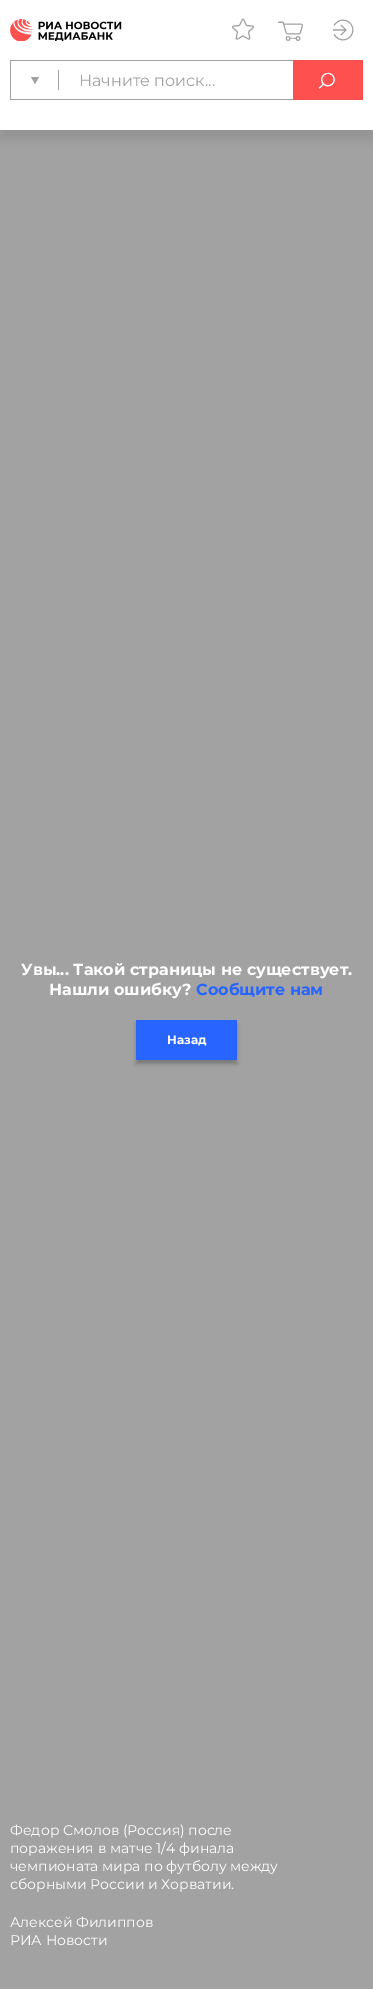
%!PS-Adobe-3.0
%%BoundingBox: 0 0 373 1989
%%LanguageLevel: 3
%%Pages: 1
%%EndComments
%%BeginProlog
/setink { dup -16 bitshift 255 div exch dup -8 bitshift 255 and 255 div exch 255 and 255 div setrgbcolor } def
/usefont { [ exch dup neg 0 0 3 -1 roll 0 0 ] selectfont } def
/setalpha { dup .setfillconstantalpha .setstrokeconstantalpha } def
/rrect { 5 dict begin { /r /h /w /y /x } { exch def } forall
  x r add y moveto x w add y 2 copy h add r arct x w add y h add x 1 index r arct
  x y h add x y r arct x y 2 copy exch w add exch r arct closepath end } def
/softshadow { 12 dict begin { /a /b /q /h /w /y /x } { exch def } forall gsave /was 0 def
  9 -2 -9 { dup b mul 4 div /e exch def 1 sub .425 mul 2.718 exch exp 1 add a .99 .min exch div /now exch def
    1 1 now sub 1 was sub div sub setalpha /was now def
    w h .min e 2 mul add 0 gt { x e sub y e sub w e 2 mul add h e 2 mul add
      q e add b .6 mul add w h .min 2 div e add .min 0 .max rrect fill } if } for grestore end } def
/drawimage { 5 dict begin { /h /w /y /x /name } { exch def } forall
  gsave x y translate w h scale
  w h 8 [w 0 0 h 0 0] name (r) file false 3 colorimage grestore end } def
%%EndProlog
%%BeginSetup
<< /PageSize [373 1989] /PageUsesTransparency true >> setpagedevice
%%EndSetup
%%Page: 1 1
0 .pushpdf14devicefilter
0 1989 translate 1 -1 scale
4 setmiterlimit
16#A3A2A2 setink
0 0 373 1989 rectfill
16#000000 setink
0 9 373 130 0 5 0.1 softshadow
16#FFFFFF setink
0 0 373 130 rectfill
(img1.raw) 10 19 112 22 drawimage
(img2.raw) 232 18 22 22 drawimage
(img3.raw) 278 21 25 20 drawimage
(img4.raw) 333 19 21 22 drawimage
[
    [10 60 283 1 16#A3A2A2]
    [10 99 283 1 16#A3A2A2]
    [10 60 1 40 16#A3A2A2]
] { aload pop setink rectfill } forall
31 77 moveto 39 77 lineto 35 84 lineto closepath fill
58 70 1 20 rectfill
/Montserrat-Regular 16 usefont
79 86 moveto (Начните поиск...) show
16#FF5050 setink
293 60 70 40 rectfill
(img5.raw) 318 72 17 17 drawimage
/Montserrat-Bold 16 usefont
16#FFFFFF setink
21 975 moveto (Увы... Такой страницы не существует.) show
49 995 moveto (Нашли ошибку?) show
16#2864FF setink
196 995 moveto (Сообщите нам) show
16#000000 setink
136 1024 101 40 0 2 0.25 softshadow
16#2864FF setink
136 1020 101 40 rectfill
/Montserrat-Bold 12 usefont
16#FFFFFF setink
167 1044 moveto (Назад) show
/Montserrat-Regular 14 usefont
[
    [(Федор Смолов \(Россия\) после) 10 1835]
    [(поражения в матче 1/4 финала) 10 1853]
    [(чемпионата мира по футболу между) 10 1871]
    [(сборными России и Хорватии.) 10 1889]
    [(Алексей Филиппов) 10 1927]
    [(РИА Новости) 10 1945]
] { aload pop moveto show } forall
.poppdf14devicefilter showpage
%%EOF
